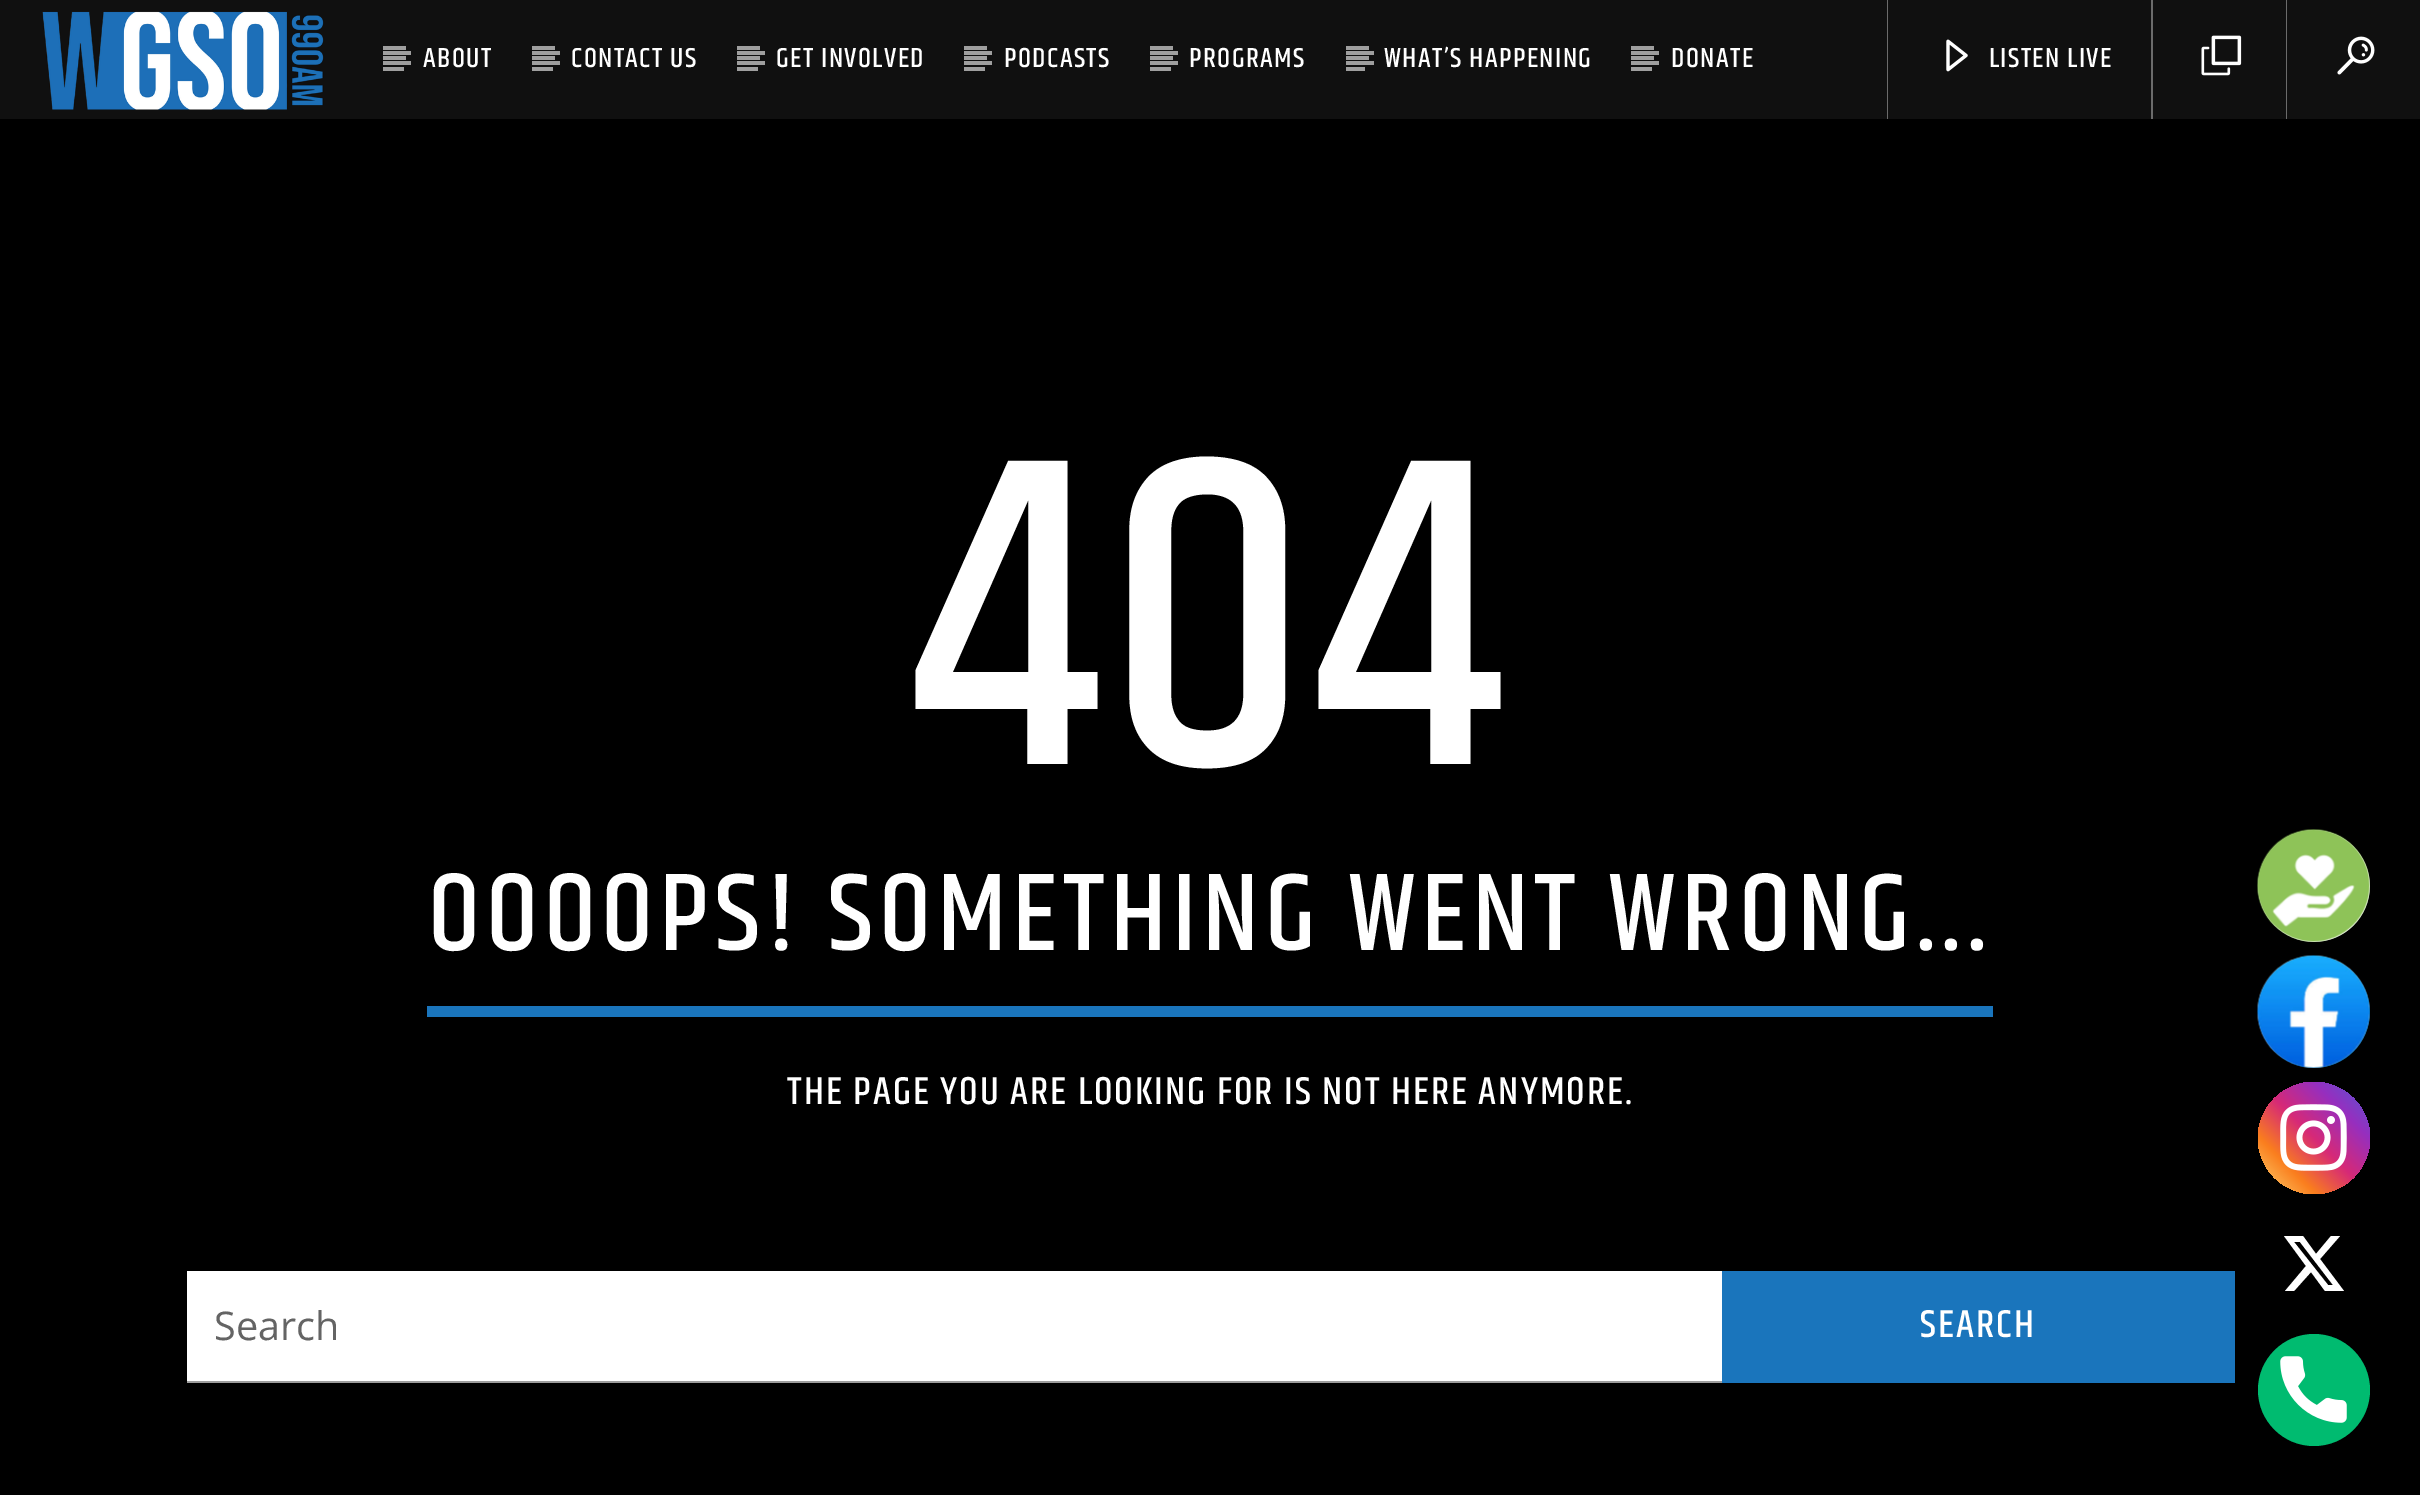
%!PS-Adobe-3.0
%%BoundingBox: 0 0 2420 1495
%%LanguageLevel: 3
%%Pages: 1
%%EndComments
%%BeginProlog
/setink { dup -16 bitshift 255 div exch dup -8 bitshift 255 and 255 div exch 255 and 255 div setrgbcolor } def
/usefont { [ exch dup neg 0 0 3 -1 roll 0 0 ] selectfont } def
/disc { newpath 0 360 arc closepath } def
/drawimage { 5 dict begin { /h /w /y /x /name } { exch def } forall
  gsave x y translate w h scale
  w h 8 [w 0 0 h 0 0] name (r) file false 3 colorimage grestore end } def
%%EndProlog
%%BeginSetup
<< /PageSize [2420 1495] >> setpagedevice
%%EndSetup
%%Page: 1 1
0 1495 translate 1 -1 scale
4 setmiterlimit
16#000000 setink
0 0 2420 1495 rectfill
16#101010 setink
0 0 2286 119 rectfill
(img1.raw) 42 11 282 99 drawimage
16#9F9F9F setink
383 46 23 4 rectfill
383 56 23 4 rectfill
/Khand-Medium 28 usefont
16#FFFFFF setink
423 67 moveto 1.4 0 (ABOUT) ashow
[
    [383 51 28 4 16#9F9F9F]
    [383 61 28 4 16#9F9F9F]
    [383 67 21 4 16#9F9F9F]
    [532 46 23 4 16#9F9F9F]
    [532 56 23 4 16#9F9F9F]
] { aload pop setink rectfill } forall
16#FFFFFF setink
571 67 moveto 1.4 0 (CONTACT US) ashow
[
    [532 51 28 4 16#9F9F9F]
    [532 61 28 4 16#9F9F9F]
    [532 67 21 4 16#9F9F9F]
    [737 46 23 4 16#9F9F9F]
    [737 56 23 4 16#9F9F9F]
] { aload pop setink rectfill } forall
16#FFFFFF setink
776 67 moveto 1.4 0 (GET INVOLVED) ashow
[
    [737 51 28 4 16#9F9F9F]
    [737 61 28 4 16#9F9F9F]
    [737 67 21 4 16#9F9F9F]
    [964 46 23 4 16#9F9F9F]
    [964 56 23 4 16#9F9F9F]
] { aload pop setink rectfill } forall
16#FFFFFF setink
1004 67 moveto 1.4 0 (PODCASTS) ashow
[
    [964 51 28 4 16#9F9F9F]
    [964 61 28 4 16#9F9F9F]
    [964 67 21 4 16#9F9F9F]
    [1150 46 23 4 16#9F9F9F]
    [1150 56 23 4 16#9F9F9F]
] { aload pop setink rectfill } forall
16#FFFFFF setink
1189 67 moveto 1.4 0 (PROGRAMS) ashow
[
    [1150 51 28 4 16#9F9F9F]
    [1150 61 28 4 16#9F9F9F]
    [1150 67 21 4 16#9F9F9F]
    [1346 46 23 4 16#9F9F9F]
    [1346 56 23 4 16#9F9F9F]
] { aload pop setink rectfill } forall
16#FFFFFF setink
1384 67 moveto 1.4 0 (WHAT’S HAPPENING) ashow
[
    [1346 51 28 4 16#9F9F9F]
    [1346 61 28 4 16#9F9F9F]
    [1346 67 19 4 16#9F9F9F]
    [1631 46 23 4 16#9F9F9F]
    [1631 56 23 4 16#9F9F9F]
] { aload pop setink rectfill } forall
16#FFFFFF setink
1671 67 moveto 1.4 0 (DONATE) ashow
[
    [1631 51 28 4 16#9F9F9F]
    [1631 61 28 4 16#9F9F9F]
    [1631 67 21 4 16#9F9F9F]
    [1887 0 1 119 16#6B6B6B]
] { aload pop setink rectfill } forall
(img2.raw) 1946 39 22 33 drawimage
16#FFFFFF setink
1989 67 moveto 1.4 0 (LISTEN LIVE) ashow
16#6B6B6B setink
2151 0 2 119 rectfill
(img3.raw) 2201 35 41 41 drawimage
2286 0 1 119 rectfill
16#101010 setink
2287 0 133 119 rectfill
(img4.raw) 2337 36 38 39 drawimage
16#1A75BC setink
427 1006 1566 11 rectfill
/Khand-Medium 448 usefont
16#FFFFFF setink
911 764 moveto 5.6 0 (404) ashow
/Khand-Medium 112 usefont
428 950 moveto 5.6 0 (OOOOPS! SOMETHING WENT WRONG...) ashow
/Khand-Medium 39.6 usefont
787 1104 moveto 2 0 (THE PAGE YOU ARE LOOKING FOR IS NOT HERE ANYMORE.) ashow
187 1271 1535 110 rectfill
16#9E9E9E setink
187 1381 1535 2 rectfill
/OpenSans-Regular 39.6 usefont
16#646464 setink
214 1340 moveto (Search) show
16#1A75BC setink
1722 1271 513 112 rectfill
/Khand-Medium 39.6 usefont
16#FFFFFF setink
1920 1337 moveto 2 0 (SEARCH) ashow
2314 886 56 disc fill
(img5.raw) 2257 829 113 113 drawimage
16#0068AA setink
2314 1012 56 disc fill
(img6.raw) 2257 955 113 113 drawimage
gsave 2314 1138 56 disc clip newpath
<< /ShadingType 2 /ColorSpace /DeviceRGB /Coords [2258 1194 2370 1082] /Extend [true true] /Function << /FunctionType 3 /Domain [0 1] /Functions [<< /FunctionType 2 /Domain [0 1] /C0 [0.996 0.851 0.459] /C1 [0.98 0.494 0.118] /N 1 >> << /FunctionType 2 /Domain [0 1] /C0 [0.98 0.494 0.118] /C1 [0.839 0.161 0.467] /N 1 >> << /FunctionType 2 /Domain [0 1] /C0 [0.839 0.161 0.467] /C1 [0.588 0.184 0.749] /N 1 >> << /FunctionType 2 /Domain [0 1] /C0 [0.588 0.184 0.749] /C1 [0.31 0.353 0.835] /N 1 >>] /Bounds [0.26 0.5 0.75] /Encode [0 1 0 1 0 1 0 1] >> >> shfill grestore
(img7.raw) 2280 1104 67 67 drawimage
16#FFFFFF setink
2331 1236 moveto 2340 1236 lineto 2320 1259 lineto 2344 1291 lineto 2325 1291 lineto 2311 1272 lineto 2294 1291 lineto 2285 1291 lineto 2306 1266 lineto 2284 1236 lineto 2303 1236 lineto 2316 1254 lineto closepath 2328 1285 moveto 2333 1285 lineto 2300 1242 lineto 2294 1242 lineto closepath fill
16#00BB70 setink
2314 1390 56 disc fill
(img8.raw) 2280 1356 67 67 drawimage
showpage
%%EOF
